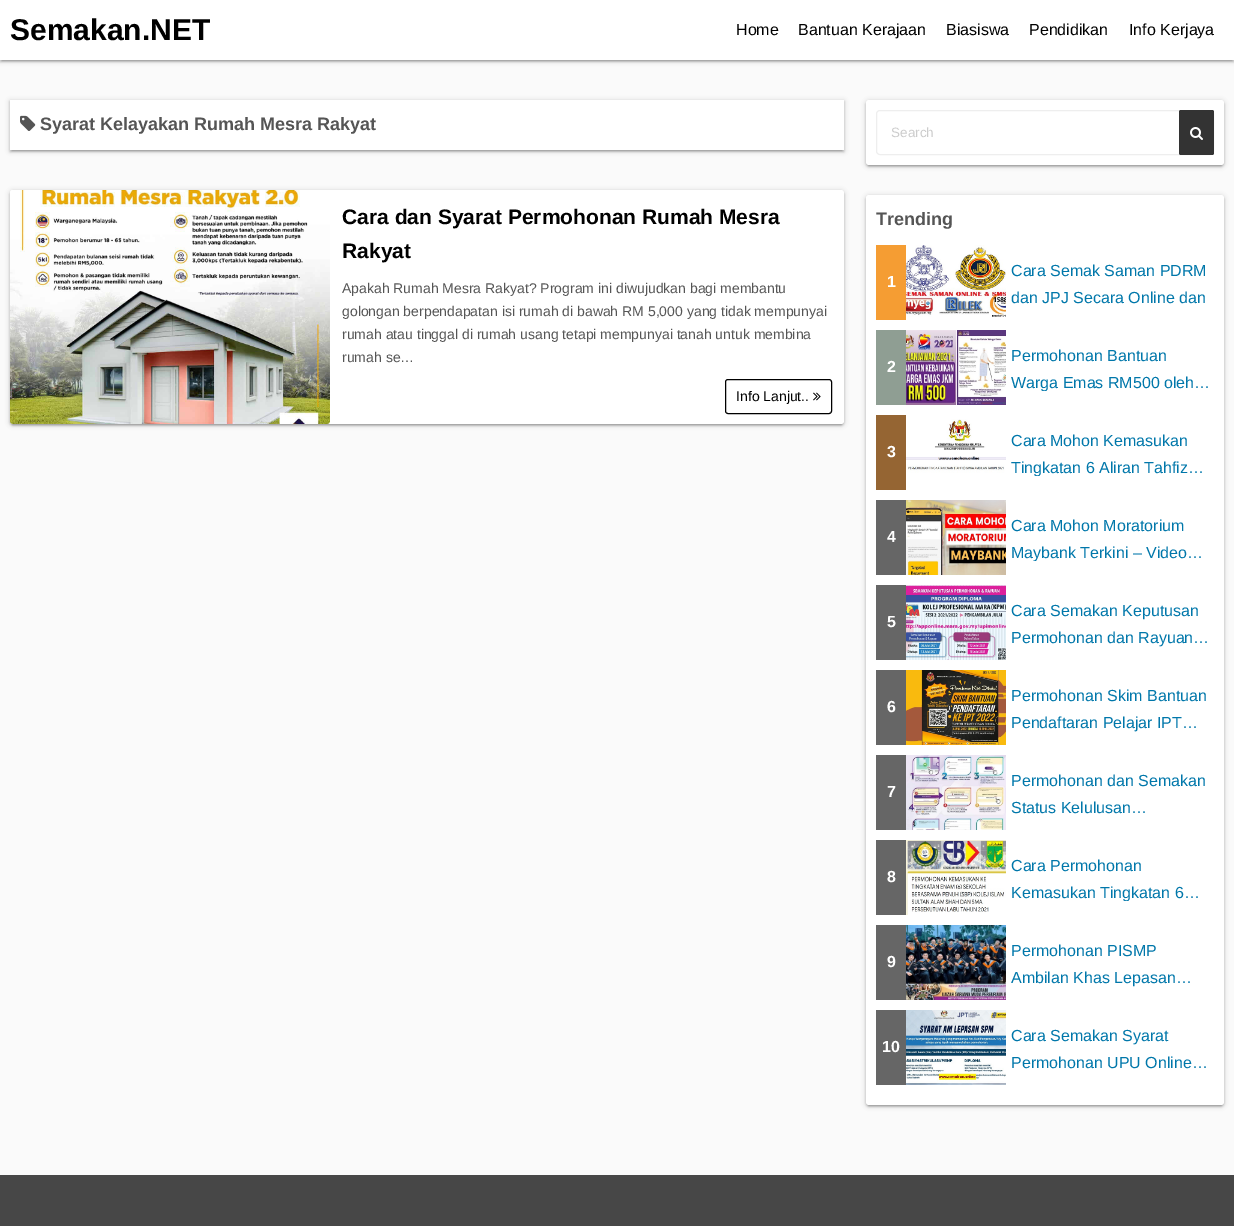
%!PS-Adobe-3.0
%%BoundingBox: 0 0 1234 1226
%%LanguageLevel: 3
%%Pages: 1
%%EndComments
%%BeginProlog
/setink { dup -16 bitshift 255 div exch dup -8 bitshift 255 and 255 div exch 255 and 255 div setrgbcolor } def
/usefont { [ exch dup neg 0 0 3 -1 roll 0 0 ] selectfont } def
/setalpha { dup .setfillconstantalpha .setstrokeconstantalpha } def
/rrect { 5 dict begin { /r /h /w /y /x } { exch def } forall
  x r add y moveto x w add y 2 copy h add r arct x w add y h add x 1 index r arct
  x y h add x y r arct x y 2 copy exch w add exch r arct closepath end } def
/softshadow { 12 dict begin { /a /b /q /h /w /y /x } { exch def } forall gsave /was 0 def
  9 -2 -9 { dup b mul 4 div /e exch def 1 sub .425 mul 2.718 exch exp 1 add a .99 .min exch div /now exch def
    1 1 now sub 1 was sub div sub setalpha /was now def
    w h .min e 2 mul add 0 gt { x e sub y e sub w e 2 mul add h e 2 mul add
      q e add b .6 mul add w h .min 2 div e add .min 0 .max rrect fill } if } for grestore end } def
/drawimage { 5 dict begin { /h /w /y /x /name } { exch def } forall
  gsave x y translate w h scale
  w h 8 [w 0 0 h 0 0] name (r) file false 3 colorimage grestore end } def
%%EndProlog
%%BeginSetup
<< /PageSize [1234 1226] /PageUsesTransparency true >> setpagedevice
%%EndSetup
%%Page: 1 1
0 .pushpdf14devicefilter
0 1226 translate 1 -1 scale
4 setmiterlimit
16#FAFAFA setink
0 0 1234 1226 rectfill
16#000000 setink
0 1 1234 60 0 2.5 0.2 softshadow
2 5 1230 56 0 0.5 0.12 softshadow
0 2 1234 60 0 1 0.14 softshadow
16#FFFFFF setink
0 0 1234 60 rectfill
/LiberationSans-Bold 30 usefont
16#000000 setink
10 40 moveto (Semakan.NET) show
/LiberationSans-Regular 16 usefont
[
    [(Home) 736 35]
    [(Bantuan Kerajaan) 798 35]
    [(Biasiswa) 946 35]
    [(Pendidikan) 1029 35]
    [(Info Kerjaya) 1129 35]
] { aload pop moveto show } forall
10 101 834 50 0 2.5 0.2 softshadow
12 105 830 46 0 0.5 0.12 softshadow
10 102 834 50 0 1 0.14 softshadow
16#FFFFFF setink
10 100 834 50 rectfill
(img1.raw) 20 115 16 16 drawimage
/LiberationSans-Bold 18 usefont
16#555555 setink
40 130 moveto (Syarat Kelayakan Rumah Mesra Rakyat) show
16#000000 setink
10 191 834 234 3 2.5 0.2 softshadow
12 195 830 230 1 0.5 0.12 softshadow
10 192 834 234 3 1 0.14 softshadow
16#FFFFFF setink
10 190 834 234 3 rrect fill
(img2.raw) 10 190 320 234 drawimage
/LiberationSans-Bold 21 usefont
16#000000 setink
342 224 moveto (Cara dan Syarat Permohonan Rumah Mesra) show
342 258 moveto (Rakyat) show
/LiberationSans-Regular 14 usefont
16#555555 setink
[
    [(Apakah Rumah Mesra Rakyat? Program ini diwujudkan bagi membantu) 342 293]
    [(golongan berpendapatan isi rumah di bawah RM 5,000 yang tidak mempunyai) 342 316]
    [(rumah atau tinggal di rumah usang tetapi mempunyai tanah untuk membina) 342 339]
    [(rumah se…) 342 362]
] { aload pop moveto show } forall
16#000000 setink
725.5 379.5 106 34 2.5 rrect stroke
736 401 moveto (Info Lanjut..) show
(img3.raw) 813 392 8 9 drawimage
866 101 358 65 3 2.5 0.2 softshadow
868 105 354 61 1 0.5 0.12 softshadow
866 102 358 65 3 1 0.14 softshadow
16#FFFFFF setink
866 100 358 65 3 rrect fill
16#EEEEEE setink
876.5 110.5 337 44 3.5 rrect stroke
/LiberationSans-Regular 13.5 usefont
16#CCCCCC setink
891 137 moveto (Search) show
16#333333 setink
1179 110 35 45 2 rrect fill
(img4.raw) 1190 127 13 13 drawimage
16#000000 setink
866 196 358 910 3 2.5 0.2 softshadow
868 200 354 906 1 0.5 0.12 softshadow
866 197 358 910 3 1 0.14 softshadow
16#FFFFFF setink
866 195 358 910 3 rrect fill
/LiberationSans-Bold 18 usefont
16#555555 setink
876 225 moveto (Trending) show
16#F59D33 setink
876 245 30 75 rectfill
/LiberationSans-Bold 16 usefont
16#FFFFFF setink
887 287 moveto (1) show
(img5.raw) 906 245 100 72 drawimage
/LiberationSans-Regular 16 usefont
16#0077AA setink
1011 276 moveto (Cara Semak Saman PDRM) show
1011 303 moveto (dan JPJ Secara Online dan) show
16#8F9E93 setink
876 330 30 75 rectfill
/LiberationSans-Bold 16 usefont
16#FFFFFF setink
887 372 moveto (2) show
(img6.raw) 906 330 100 75 drawimage
/LiberationSans-Regular 16 usefont
16#0077AA setink
1011 361 moveto (Permohonan Bantuan) show
gsave
1011 343 203 48 rectclip
1011 388 moveto (Warga Emas RM500 oleh…) show
grestore
16#956533 setink
876 415 30 75 rectfill
/LiberationSans-Bold 16 usefont
16#FFFFFF setink
887 457 moveto (3) show
(img7.raw) 906 419 100 54 drawimage
/LiberationSans-Regular 16 usefont
16#0077AA setink
1011 446 moveto (Cara Mohon Kemasukan) show
gsave
1011 428 203 48 rectclip
1011 473 moveto (Tingkatan 6 Aliran Tahfiz…) show
grestore
16#666666 setink
876 500 30 75 rectfill
/LiberationSans-Bold 16 usefont
16#FFFFFF setink
887 542 moveto (4) show
(img8.raw) 906 500 100 75 drawimage
/LiberationSans-Regular 16 usefont
16#0077AA setink
1011 531 moveto (Cara Mohon Moratorium) show
gsave
1011 513 203 48 rectclip
1011 558 moveto (Maybank Terkini – Video…) show
grestore
16#666666 setink
876 585 30 75 rectfill
/LiberationSans-Bold 16 usefont
16#FFFFFF setink
887 627 moveto (5) show
(img9.raw) 906 585 100 75 drawimage
/LiberationSans-Regular 16 usefont
16#0077AA setink
1011 616 moveto (Cara Semakan Keputusan) show
1011 643 moveto (Permohonan dan Rayuan…) show
16#666666 setink
876 670 30 75 rectfill
/LiberationSans-Bold 16 usefont
16#FFFFFF setink
887 712 moveto (6) show
(img10.raw) 906 670 100 75 drawimage
/LiberationSans-Regular 16 usefont
16#0077AA setink
1011 701 moveto (Permohonan Skim Bantuan) show
1011 728 moveto (Pendaftaran Pelajar IPT…) show
16#666666 setink
876 755 30 75 rectfill
/LiberationSans-Bold 16 usefont
16#FFFFFF setink
887 797 moveto (7) show
(img11.raw) 906 755 100 75 drawimage
/LiberationSans-Regular 16 usefont
16#0077AA setink
1011 786 moveto (Permohonan dan Semakan) show
1011 813 moveto (Status Kelulusan…) show
16#666666 setink
876 840 30 75 rectfill
/LiberationSans-Bold 16 usefont
16#FFFFFF setink
887 882 moveto (8) show
(img12.raw) 906 840 100 75 drawimage
/LiberationSans-Regular 16 usefont
16#0077AA setink
1011 871 moveto (Cara Permohonan) show
gsave
1011 853 203 48 rectclip
1011 898 moveto (Kemasukan Tingkatan 6…) show
grestore
16#666666 setink
876 925 30 75 rectfill
/LiberationSans-Bold 16 usefont
16#FFFFFF setink
887 967 moveto (9) show
(img13.raw) 906 925 100 75 drawimage
/LiberationSans-Regular 16 usefont
16#0077AA setink
1011 956 moveto (Permohonan PISMP) show
1011 983 moveto (Ambilan Khas Lepasan…) show
16#666666 setink
876 1010 30 75 rectfill
/LiberationSans-Bold 16 usefont
16#FFFFFF setink
882 1052 moveto (10) show
(img14.raw) 906 1010 100 75 drawimage
/LiberationSans-Regular 16 usefont
16#0077AA setink
1011 1041 moveto (Cara Semakan Syarat) show
1011 1068 moveto (Permohonan UPU Online…) show
16#474747 setink
0 1175 1234 51 rectfill
.poppdf14devicefilter showpage
%%EOF
